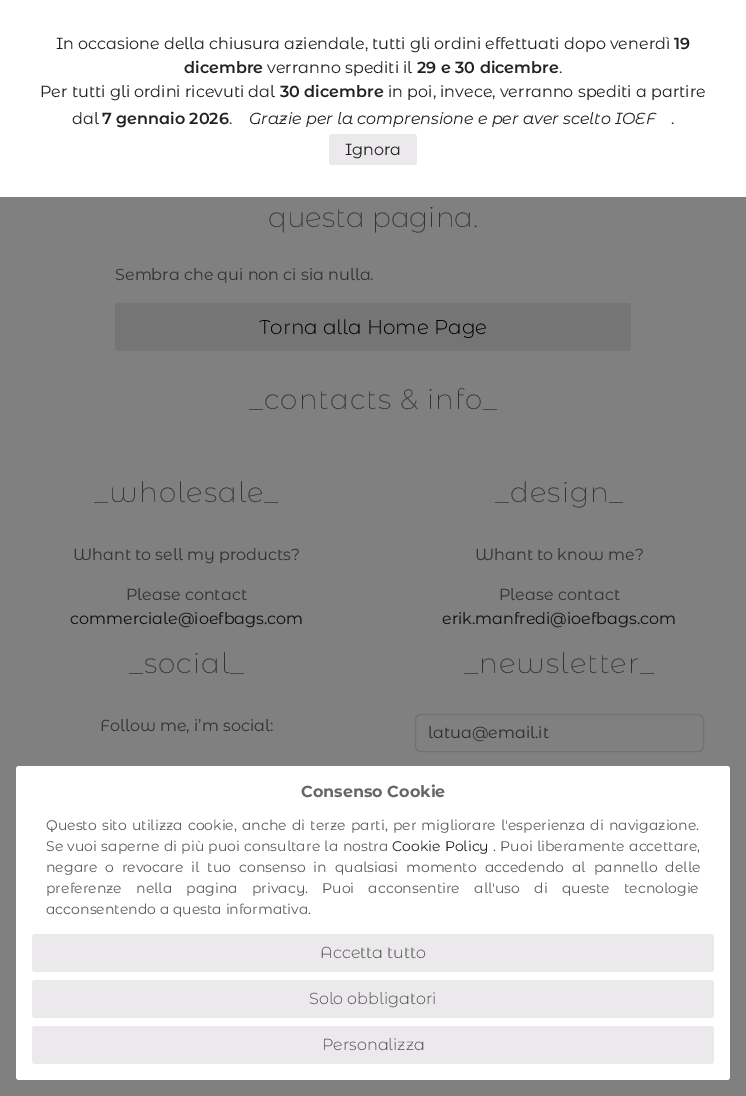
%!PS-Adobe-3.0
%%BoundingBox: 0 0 746 1096
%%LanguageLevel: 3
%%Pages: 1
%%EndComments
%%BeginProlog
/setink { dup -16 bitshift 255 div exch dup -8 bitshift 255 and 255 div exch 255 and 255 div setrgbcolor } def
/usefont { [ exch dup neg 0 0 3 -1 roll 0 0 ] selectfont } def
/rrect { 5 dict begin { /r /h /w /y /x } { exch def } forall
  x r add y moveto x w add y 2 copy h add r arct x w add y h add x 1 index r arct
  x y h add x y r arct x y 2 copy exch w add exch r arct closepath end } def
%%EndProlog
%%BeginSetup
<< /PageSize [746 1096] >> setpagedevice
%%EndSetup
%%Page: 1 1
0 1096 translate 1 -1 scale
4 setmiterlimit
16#808080 setink
0 0 746 1096 rectfill
16#FFFFFF setink
0 0 746 197 rectfill
/MontserratAlternates-Regular 16 usefont
16#222222 setink
56 49 moveto (In occasione della chiusura aziendale, tutti gli ordini effettuati dopo venerdì) show
/MontserratAlternates-SemiBold 16 usefont
674 49 moveto (19) show
184 73 moveto (dicembre) show
/MontserratAlternates-Regular 16 usefont
267 73 moveto (verranno spediti il) show
/MontserratAlternates-SemiBold 16 usefont
417 73 moveto (29 e 30 dicembre) show
/MontserratAlternates-Regular 16 usefont
559 73 moveto (.) show
40 97 moveto (Per tutti gli ordini ricevuti dal) show
/MontserratAlternates-SemiBold 16 usefont
280 97 moveto (30 dicembre) show
/MontserratAlternates-Regular 16 usefont
388 97 moveto (in poi, invece, verranno spediti a partire) show
72 124 moveto (dal) show
/MontserratAlternates-SemiBold 16 usefont
102 124 moveto (7 gennaio 2026) show
/MontserratAlternates-Regular 16 usefont
229 124 moveto (.) show
/MontserratAlternates-Italic 16 usefont
249 124 moveto (Grazie per la comprensione e per aver scelto IOEF) show
/MontserratAlternates-Regular 16 usefont
671 124 moveto (.) show
16#EBE9EB setink
329 134 88 31 3 rrect fill
16#222222 setink
345 155 moveto (Ignora) show
/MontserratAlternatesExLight-ExtraLight 28 usefont
16#333333 setink
268 227 moveto (questa pagina.) show
/MontserratAlternates-Regular 16 usefont
115 280 moveto (Sembra che qui non ci sia nulla.) show
16#767576 setink
115 303 516 48 3 rrect fill
/MontserratAlternates-Light 20 usefont
16#000000 setink
259 334 moveto (Torna alla Home Page) show
/MontserratAlternatesExLight-ExtraLight 28 usefont
16#333333 setink
249 409 moveto 1 0 (_contacts & info_) ashow
94 502 moveto 1 0 (_wholesale_) ashow
/MontserratAlternates-Regular 16 usefont
73 560 moveto (Whant to sell my products?) show
126 600 moveto (Please contact) show
16#111111 setink
70 624 moveto (commerciale@ioefbags.com) show
/MontserratAlternatesExLight-ExtraLight 28 usefont
16#333333 setink
495 502 moveto 1 0 (_design_) ashow
/MontserratAlternates-Regular 16 usefont
475 560 moveto (Whant to know me?) show
499 600 moveto (Please contact) show
16#111111 setink
442 624 moveto (erik.manfredi@ioefbags.com) show
/MontserratAlternatesExLight-ExtraLight 28 usefont
16#333333 setink
129 673 moveto 1 0 (_social_) ashow
/MontserratAlternates-Regular 16 usefont
100 731 moveto (Follow me, i’m social:) show
/MontserratAlternatesExLight-ExtraLight 28 usefont
464 673 moveto 1 0 (_newsletter_) ashow
16#6F7173 setink
415.5 714.5 288 37 5.5 rrect stroke
/MontserratAlternates-Regular 16 usefont
16#2D2E30 setink
428 738 moveto (latua@email.it) show
16#FFFFFF setink
16 766 714 314 3 rrect fill
/MontserratAlternates-Bold 16 usefont
16#666666 setink
301 797 moveto (Consenso Cookie) show
/MontserratAlternates-Regular 14 usefont
16#595C5F setink
46 830 moveto 1.5 0 32 (Questo sito utilizza cookie, anche di terze parti, per migliorare l'esperienza di navigazione.) widthshow
46 851 moveto 0.75 0 32 (Se vuoi saperne di più puoi consultare la nostra) widthshow
16#222222 setink
392 851 moveto 0.75 0 32 (Cookie Policy) widthshow
16#595C5F setink
493 851 moveto 0.75 0 32 (. Puoi liberamente accettare,) widthshow
46 872 moveto 4.25 0 32 (negare o revocare il tuo consenso in qualsiasi momento accedendo al pannello delle) widthshow
46 893 moveto 10.5 0 32 (preferenze nella pagina privacy. Puoi acconsentire all'uso di queste tecnologie) widthshow
46 914 moveto (acconsentendo a questa informativa.) show
16#EBE9EB setink
32 934 682 38 3 rrect fill
/MontserratAlternates-Light 16 usefont
16#515151 setink
320 958 moveto (Accetta tutto) show
16#EBE9EB setink
32 980 682 38 3 rrect fill
16#515151 setink
309 1004 moveto (Solo obbligatori) show
16#EBE9EB setink
32 1026 682 38 3 rrect fill
16#515151 setink
322 1050 moveto (Personalizza) show
showpage
%%EOF
